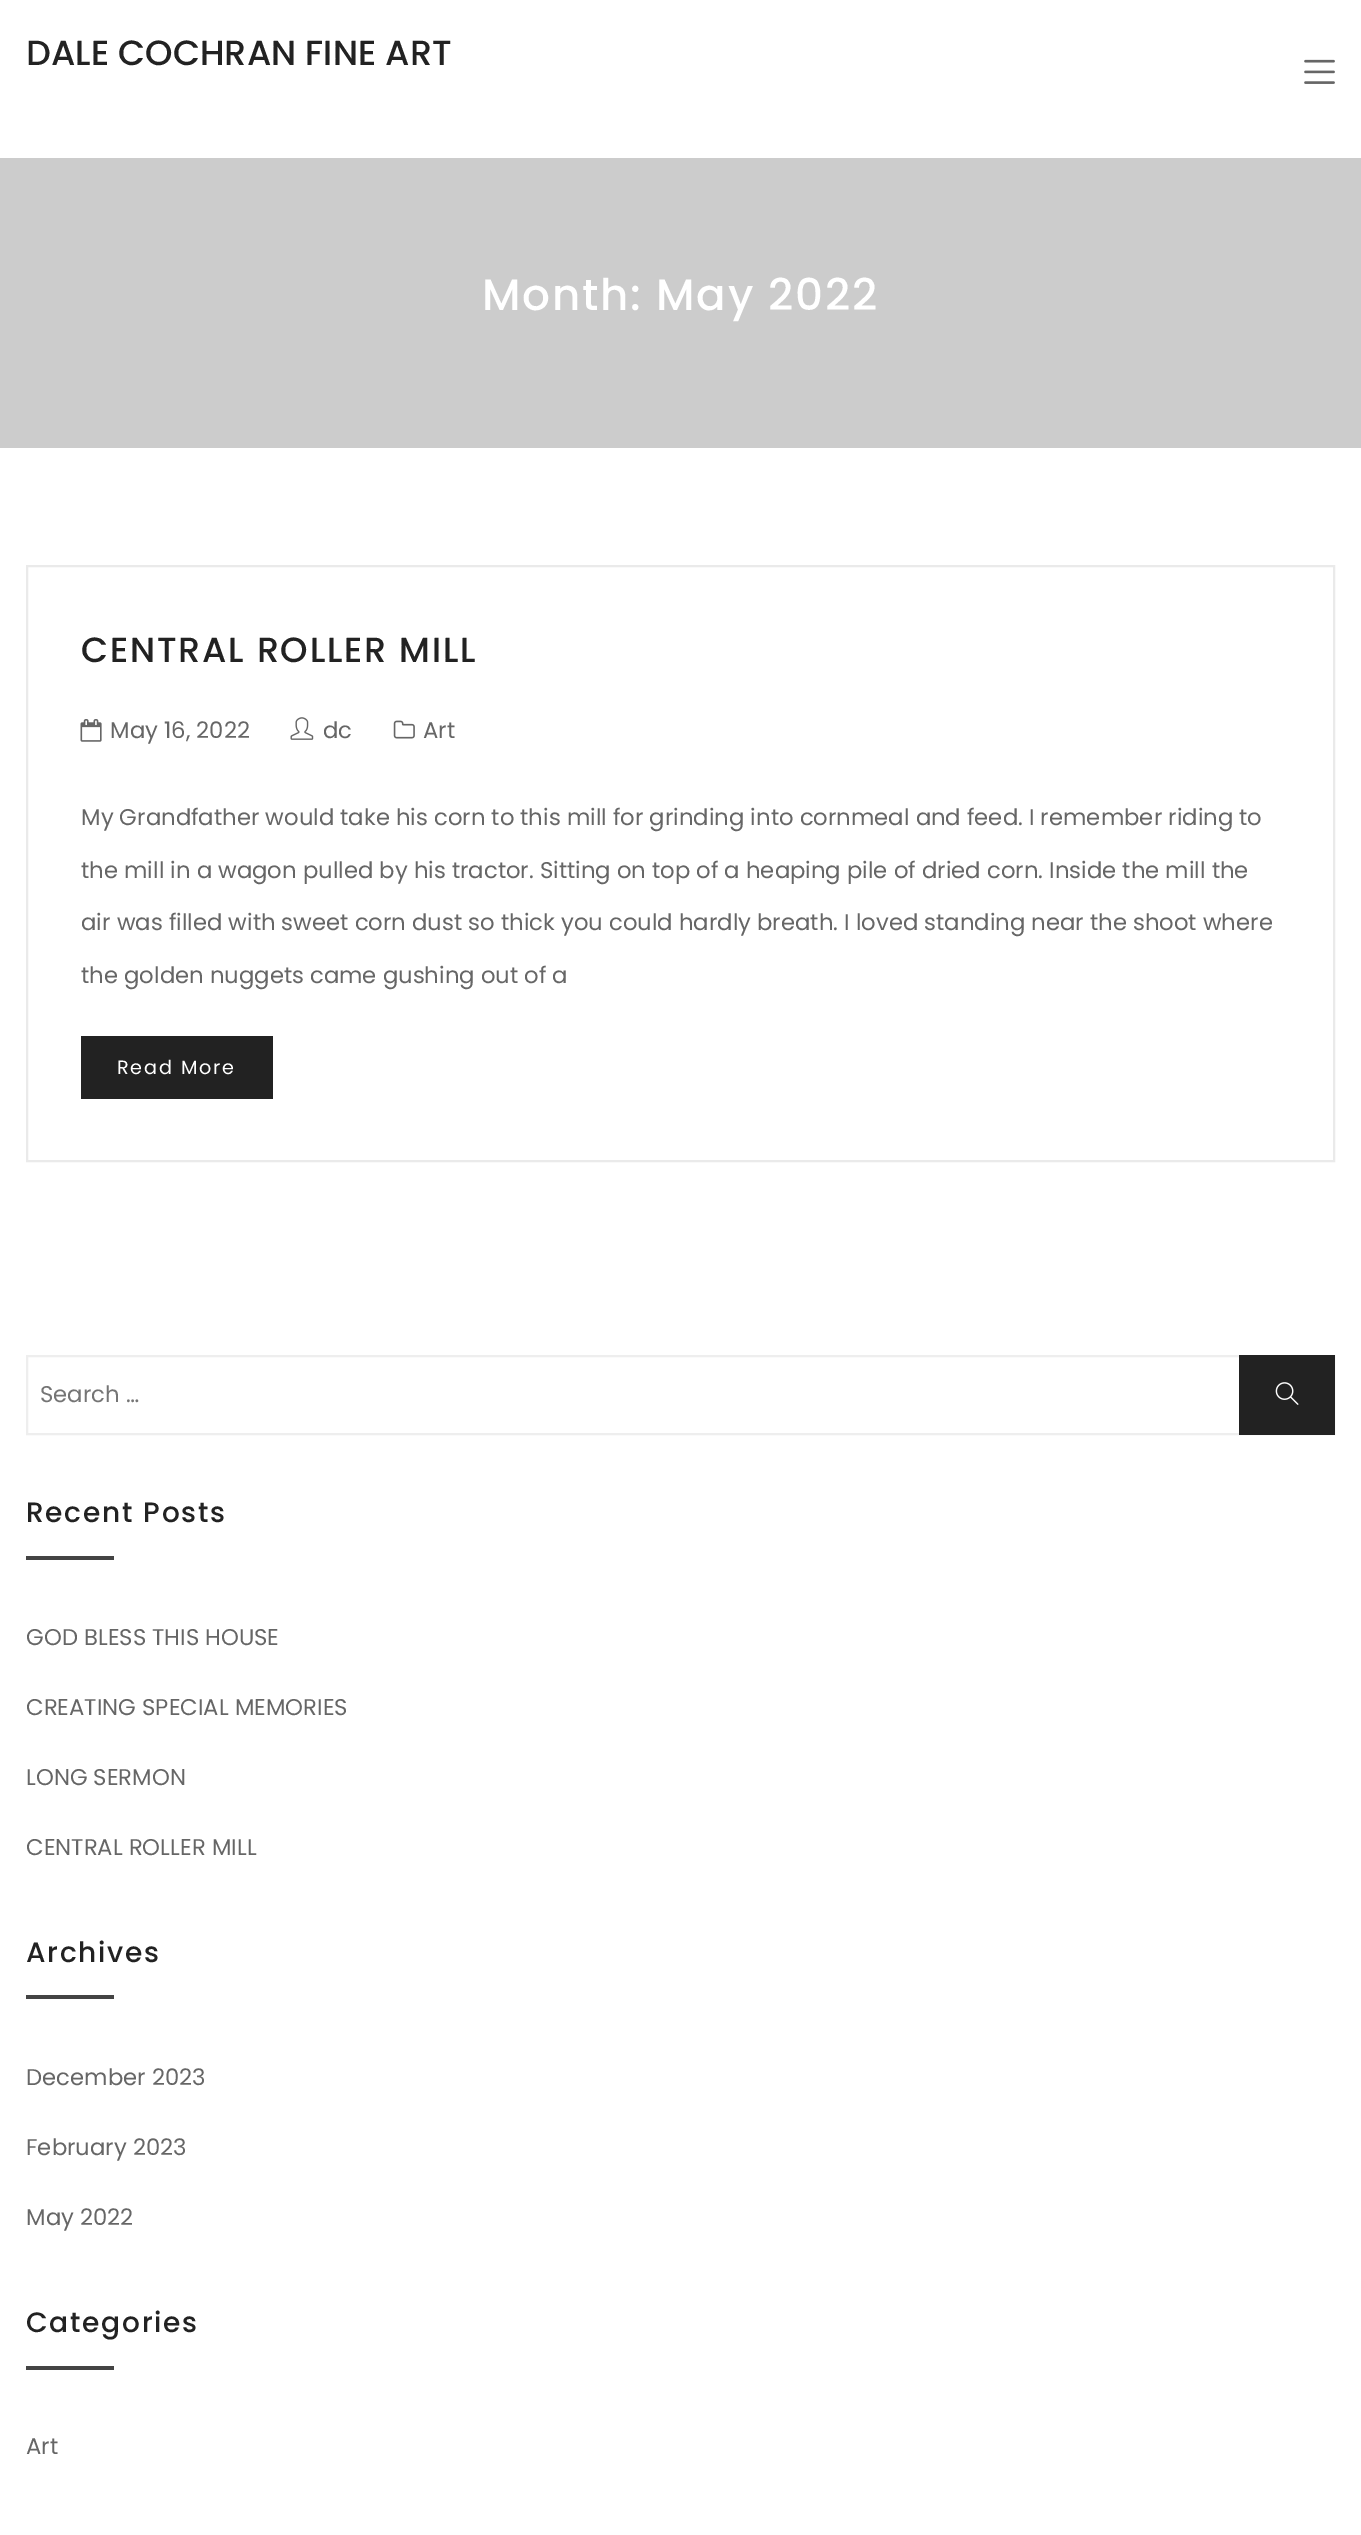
%!PS-Adobe-3.0
%%BoundingBox: 0 0 1361 2535
%%LanguageLevel: 3
%%Pages: 1
%%EndComments
%%BeginProlog
/setink { dup -16 bitshift 255 div exch dup -8 bitshift 255 and 255 div exch 255 and 255 div setrgbcolor } def
/usefont { [ exch dup neg 0 0 3 -1 roll 0 0 ] selectfont } def
/drawimage { 5 dict begin { /h /w /y /x /name } { exch def } forall
  gsave x y translate w h scale
  w h 8 [w 0 0 h 0 0] name (r) file false 3 colorimage grestore end } def
%%EndProlog
%%BeginSetup
<< /PageSize [1361 2535] >> setpagedevice
%%EndSetup
%%Page: 1 1
0 2535 translate 1 -1 scale
4 setmiterlimit
16#FFFFFF setink
0 0 1361 2535 rectfill
/Poppins-Medium 35 usefont
16#222222 setink
26 65 moveto (DALE COCHRAN FINE ART) show
(img1.raw) 1304 59 31 25 drawimage
16#CCCCCC setink
0 158 1361 290 rectfill
/Poppins-Medium 43.75 usefont
16#FFFFFF setink
482 310 moveto 1.75 0 (Month: May 2022) ashow
16#EAEAEA setink
2 setlinewidth
27 566 1307 595 rectstroke
/Poppins-Medium 35 usefont
16#222222 setink
81 662 moveto 1.75 0 (CENTRAL ROLLER MILL) ashow
(img2.raw) 80 719 22 23 drawimage
/Poppins-Regular 22.75 usefont
16#666666 setink
110 738 moveto (May 16, 2022) show
(img3.raw) 290 717 24 23 drawimage
323 738 moveto (dc) show
(img4.raw) 393 720 22 19 drawimage
[
    [(Art) 423 738]
    [(My Grandfather would take his corn to this mill for grinding into cornmeal and feed. I remember riding to) 81 825]
    [(the mill in a wagon pulled by his tractor. Sitting on top of a heaping pile of dried corn. Inside the mill the) 81 878]
    [(air was filled with sweet corn dust so thick you could hardly breath. I loved standing near the shoot where) 81 930]
    [(the golden nuggets came gushing out of a) 81 983]
] { aload pop moveto show } forall
16#222222 setink
81 1036 192 63 rectfill
/Poppins-Regular 19.25 usefont
16#FFFFFF setink
117 1074 moveto 1.75 0 (Read More) ashow
16#EEEEEE setink
27 1356 1307 78 rectstroke
/Poppins-Regular 22.75 usefont
16#757575 setink
40 1402 moveto (Search …) show
16#222222 setink
1239 1355 96 80 rectfill
(img5.raw) 1275 1382 24 23 drawimage
/Poppins-Medium 28 usefont
26 1522 moveto 1.75 0 (Recent Posts) ashow
16#444444 setink
26 1556 88 4 rectfill
/Poppins-Regular 22.75 usefont
16#666666 setink
[
    [(GOD BLESS THIS HOUSE) 26 1645]
    [(CREATING SPECIAL MEMORIES) 26 1715]
    [(LONG SERMON) 26 1785]
    [(CENTRAL ROLLER MILL) 26 1855]
] { aload pop moveto show } forall
/Poppins-Medium 28 usefont
16#222222 setink
26 1962 moveto 1.75 0 (Archives) ashow
16#444444 setink
26 1995 88 4 rectfill
/Poppins-Regular 22.75 usefont
16#666666 setink
[
    [(December 2023) 26 2085]
    [(February 2023) 26 2155]
    [(May 2022) 26 2225]
] { aload pop moveto show } forall
/Poppins-Medium 28 usefont
16#222222 setink
26 2332 moveto 1.75 0 (Categories) ashow
16#444444 setink
26 2366 88 4 rectfill
/Poppins-Regular 22.75 usefont
16#666666 setink
26 2454 moveto (Art) show
showpage
%%EOF
